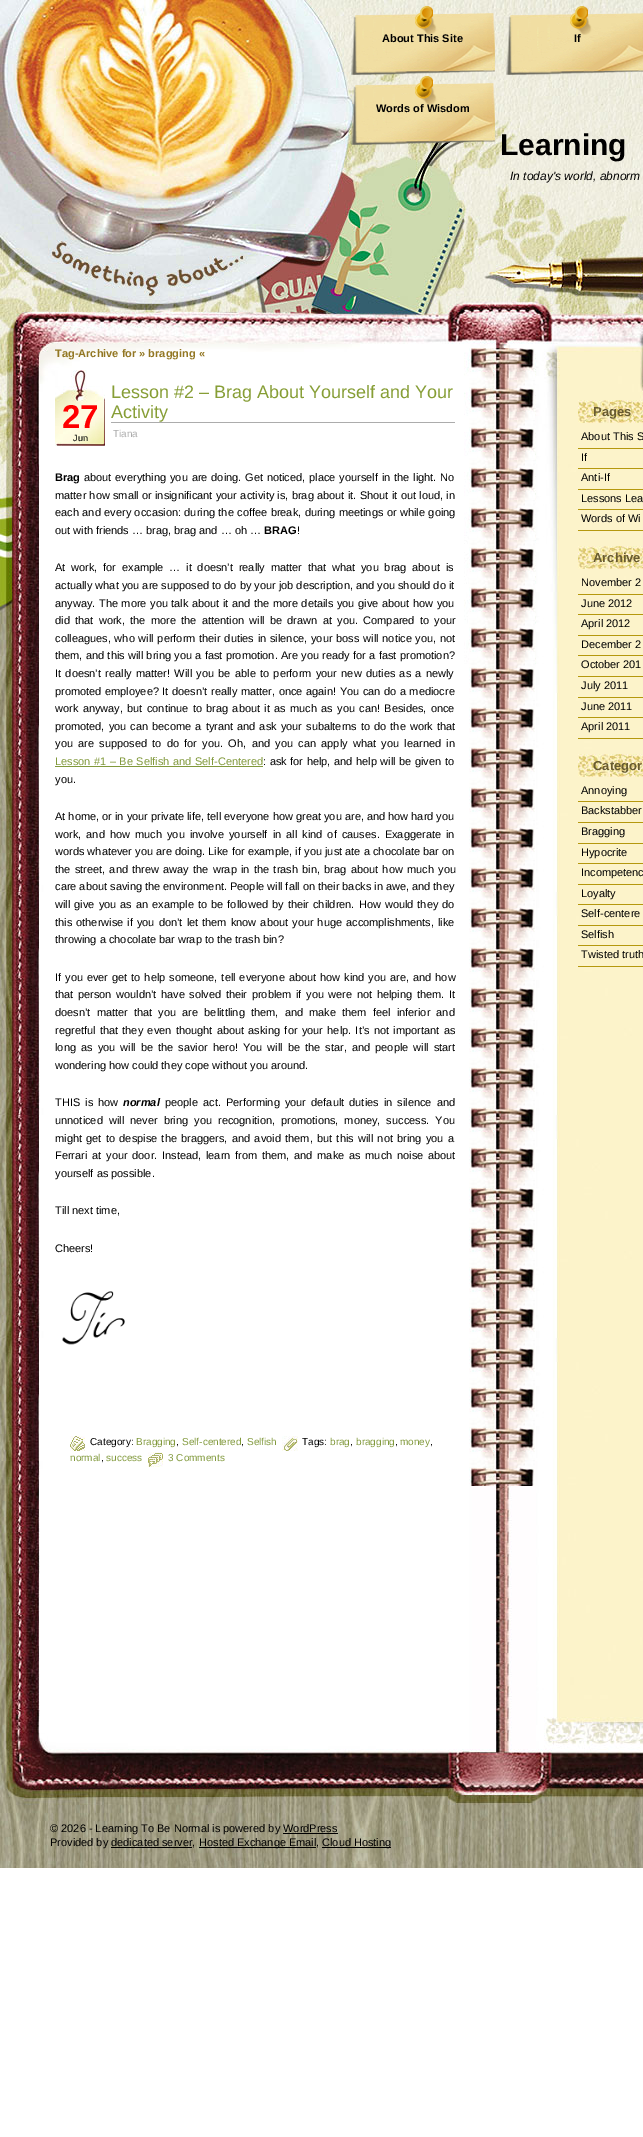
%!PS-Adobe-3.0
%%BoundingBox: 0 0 643 2137
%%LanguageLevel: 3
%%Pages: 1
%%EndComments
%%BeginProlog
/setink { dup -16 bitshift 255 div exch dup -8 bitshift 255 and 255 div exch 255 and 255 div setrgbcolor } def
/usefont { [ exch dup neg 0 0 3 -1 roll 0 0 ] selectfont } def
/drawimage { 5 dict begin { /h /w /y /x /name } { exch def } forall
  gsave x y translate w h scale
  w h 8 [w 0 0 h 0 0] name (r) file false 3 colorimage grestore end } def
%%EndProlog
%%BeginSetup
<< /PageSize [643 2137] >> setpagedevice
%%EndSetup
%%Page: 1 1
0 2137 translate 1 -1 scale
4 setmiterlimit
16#FFFFFF setink
0 0 643 2137 rectfill
(img1.raw) 0 669 643 792 drawimage
(img2.raw) 0 0 643 320 drawimage
(img3.raw) 351 6 144 69 drawimage
/LiberationSans-Bold 11 usefont
16#000000 setink
382 42 moveto (About This Site) show
(img4.raw) 506 6 137 69 drawimage
574 42 moveto (If) show
(img5.raw) 351 76 144 69 drawimage
376 112 moveto (Words of Wisdom) show
/LiberationSans-Bold 30 usefont
500 155 moveto (Learning) show
/LiberationSans-Italic 12 usefont
510 180 moveto (In today's world, abnorm) show
(img6.raw) 0 320 643 349 drawimage
(img14.raw) 0 1461 643 407 drawimage
(img7.raw) 469 348 66 1138 drawimage
/LiberationSans-Bold 11 usefont
16#937723 setink
55 357 moveto (Tag-Archive for » bragging «) show
(img8.raw) 55 370 50 76 drawimage
/LiberationSans-Bold 33 usefont
16#FF0000 setink
62 428 moveto (27) show
/LiberationSans-Regular 9 usefont
16#000000 setink
73 441 moveto (Jun) show
16#ACACAC setink
111 422 344 1 rectfill
/LiberationSans-Regular 18 usefont
16#879E36 setink
111 398 moveto (Lesson #2 – Brag About Yourself and Your) show
111 418 moveto (Activity) show
/LiberationSans-Regular 10 usefont
16#ACACAC setink
113 437 moveto (Tiana) show
/LiberationSans-Bold 11 usefont
16#000000 setink
55 481 moveto (Brag) show
/LiberationSans-Regular 11 usefont
84 481 moveto 0.8 0 32 (about everything you are doing. Get noticed, place yourself in the light. No) widthshow
55 499 moveto 0.25 0 32 (matter how small or insignificant your activity is, brag about it. Shout it out loud, in) widthshow
55 516 moveto 0.4 0 32 (each and every occasion: during the coffee break, during meetings or while going) widthshow
55 534 moveto (out with friends … brag, brag and … oh …) show
/LiberationSans-Bold 11 usefont
264 534 moveto (BRAG) show
/LiberationSans-Regular 11 usefont
297 534 moveto (!) show
55 571 moveto 2.75 0 32 (At work, for example … it doesn’t really matter that what you brag about is) widthshow
55 589 moveto (actually what you are supposed to do by your job description, and you should do it) show
55 607 moveto 0.5 0 32 (anyway. The more you talk about it and the more details you give about how you) widthshow
55 624 moveto 2.25 0 32 (did that work, the more the attention will be drawn at you. Compared to your) widthshow
55 642 moveto 0.75 0 32 (colleagues, who will perform their duties in silence, your boss will notice you, not) widthshow
55 659 moveto 0.25 0 32 (them, and this will bring you a fast promotion. Are you ready for a fast promotion?) widthshow
55 677 moveto 1.25 0 32 (It doesn’t really matter! Will you be able to perform your new duties as a newly) widthshow
55 695 moveto 0.5 0 32 (promoted employee? It doesn’t really matter, once again! You can do a mediocre) widthshow
55 712 moveto 1.25 0 32 (work anyway, but continue to brag about it as much as you can! Besides, once) widthshow
55 730 moveto 1 0 32 (promoted, you can become a tyrant and ask your subalterns to do the work that) widthshow
55 747 moveto 2.25 0 32 (you are supposed to do for you. Oh, and you can apply what you learned in) widthshow
16#81993B setink
55 765 moveto 0.5 0 32 (Lesson #1 – Be Selfish and Self-Centered) widthshow
55 766 208 1 rectfill
16#000000 setink
263 765 moveto 0.5 0 32 (: ask for help, and help will be given to) widthshow
55 783 moveto (you.) show
55 820 moveto (At home, or in your private life, tell everyone how great you are, and how hard you) show
55 838 moveto 2 0 32 (work, and how much you involve yourself in all kind of causes. Exaggerate in) widthshow
55 855 moveto 0.1 0 32 (words whatever you are doing. Like for example, if you just ate a chocolate bar on) widthshow
55 873 moveto 1.25 0 32 (the street, and threw away the wrap in the trash bin, brag about how much you) widthshow
55 890 moveto (care about saving the environment. People will fall on their backs in awe, and they) show
55 908 moveto 1 0 32 (will give you as an example to be followed by their children. How would they do) widthshow
55 926 moveto 1 0 32 (this otherwise if you don’t let them know about your huge accomplishments, like) widthshow
55 943 moveto (throwing a chocolate bar wrap to the trash bin?) show
55 981 moveto 0.9 0 32 (If you ever get to help someone, tell everyone about how kind you are, and how) widthshow
55 998 moveto 1.5 0 32 (that person wouldn’t have solved their problem if you were not helping them. It) widthshow
55 1016 moveto 3.1 0 32 (doesn’t matter that you are belittling them, and make them feel inferior and) widthshow
55 1034 moveto 1.25 0 32 (regretful that they even thought about asking for your help. It’s not important as) widthshow
55 1051 moveto 2 0 32 (long as you will be the savior hero! You will be the star, and people will start) widthshow
55 1069 moveto (wondering how could they cope without you around.) show
55 1106 moveto 2 0 32 (THIS is how) widthshow
/LiberationSans-BoldItalic 11 usefont
123 1106 moveto (normal) show
/LiberationSans-Regular 11 usefont
165 1106 moveto 2 0 32 (people act. Performing your default duties in silence and) widthshow
55 1124 moveto 3 0 32 (unnoticed will never bring you recognition, promotions, money, success. You) widthshow
55 1142 moveto 1.25 0 32 (might get to despise the braggers, and avoid them, but this will not bring you a) widthshow
55 1159 moveto 1.7 0 32 (Ferrari at your door. Instead, learn from them, and make as much noise about) widthshow
[
    [(yourself as possible.) 55 1177]
    [(Till next time,) 55 1214]
    [(Cheers!) 55 1252]
] { aload pop moveto show } forall
(img9.raw) 62 1291 63 54 drawimage
(img10.raw) 70 1436 15 15 drawimage
/LiberationSans-Regular 10 usefont
90 1445 moveto (Category:) show
16#81993B setink
136 1445 moveto (Bragging) show
16#000000 setink
176 1445 moveto (,) show
16#81993B setink
182 1445 moveto (Self-centered) show
16#000000 setink
241 1445 moveto (,) show
16#81993B setink
247 1445 moveto (Selfish) show
(img11.raw) 282 1436 16 15 drawimage
16#000000 setink
302 1445 moveto (Tags:) show
16#81993B setink
330 1445 moveto (brag) show
16#000000 setink
350 1445 moveto (,) show
16#81993B setink
356 1445 moveto (bragging) show
16#000000 setink
395 1445 moveto (,) show
16#81993B setink
400 1445 moveto (money) show
16#000000 setink
430 1445 moveto (,) show
16#81993B setink
70 1461 moveto (normal) show
16#000000 setink
101 1461 moveto (,) show
16#81993B setink
106 1461 moveto (success) show
(img12.raw) 148 1452 15 15 drawimage
168 1461 moveto (3 Comments) show
(img13.raw) 578 400 65 23 drawimage
/LiberationSans-Bold 13 usefont
16#685B31 setink
593 416 moveto (Pages) show
16#B5980E setink
578 448 65 1 rectfill
/LiberationSans-Regular 11 usefont
16#000000 setink
581 440 moveto (About This S) show
16#B5980E setink
578 468 65 1 rectfill
16#000000 setink
581 461 moveto (If) show
16#B5980E setink
578 489 65 1 rectfill
16#000000 setink
581 481 moveto (Anti-If) show
16#B5980E setink
578 509 65 1 rectfill
16#000000 setink
581 502 moveto (Lessons Lea) show
16#B5980E setink
578 530 65 1 rectfill
16#000000 setink
581 522 moveto (Words of Wi) show
(img13.raw) 578 546 65 23 drawimage
/LiberationSans-Bold 13 usefont
16#685B31 setink
593 562 moveto (Archive) show
16#B5980E setink
578 594 65 1 rectfill
/LiberationSans-Regular 11 usefont
16#000000 setink
581 586 moveto (November 2) show
16#B5980E setink
578 614 65 1 rectfill
16#000000 setink
581 607 moveto (June 2012) show
16#B5980E setink
578 635 65 1 rectfill
16#000000 setink
581 627 moveto (April 2012) show
16#B5980E setink
578 655 65 1 rectfill
16#000000 setink
581 648 moveto (December 2) show
16#B5980E setink
578 676 65 1 rectfill
16#000000 setink
581 668 moveto (October 201) show
16#B5980E setink
578 697 65 1 rectfill
16#000000 setink
581 689 moveto (July 2011) show
16#B5980E setink
578 717 65 1 rectfill
16#000000 setink
581 710 moveto (June 2011) show
16#B5980E setink
578 738 65 1 rectfill
16#000000 setink
581 730 moveto (April 2011) show
(img13.raw) 578 754 65 23 drawimage
/LiberationSans-Bold 13 usefont
16#685B31 setink
593 770 moveto (Categor) show
16#B5980E setink
578 801 65 1 rectfill
/LiberationSans-Regular 11 usefont
16#000000 setink
581 794 moveto (Annoying) show
16#B5980E setink
578 822 65 1 rectfill
16#000000 setink
581 814 moveto (Backstabber) show
16#B5980E setink
578 843 65 1 rectfill
16#000000 setink
581 835 moveto (Bragging) show
16#B5980E setink
578 863 65 1 rectfill
16#000000 setink
581 856 moveto (Hypocrite) show
16#B5980E setink
578 884 65 1 rectfill
16#000000 setink
581 876 moveto (Incompetenc) show
16#B5980E setink
578 904 65 1 rectfill
16#000000 setink
581 897 moveto (Loyalty) show
16#B5980E setink
578 925 65 1 rectfill
16#000000 setink
581 917 moveto (Self-centere) show
16#B5980E setink
578 945 65 1 rectfill
16#000000 setink
581 938 moveto (Selfish) show
16#B5980E setink
578 966 65 1 rectfill
16#000000 setink
581 958 moveto (Twisted truth) show
50 1832 moveto (© 2026 - Learning To Be Normal is powered by WordPress) show
283 1833 55 1 rectfill
50 1846 moveto (Provided by dedicated server,) show
199 1847 117 1 rectfill
199 1846 moveto (Hosted Exchange Email,) show
322 1847 69 1 rectfill
322 1846 moveto (Cloud Hosting) show
111 1847 81 1 rectfill
showpage
%%EOF
